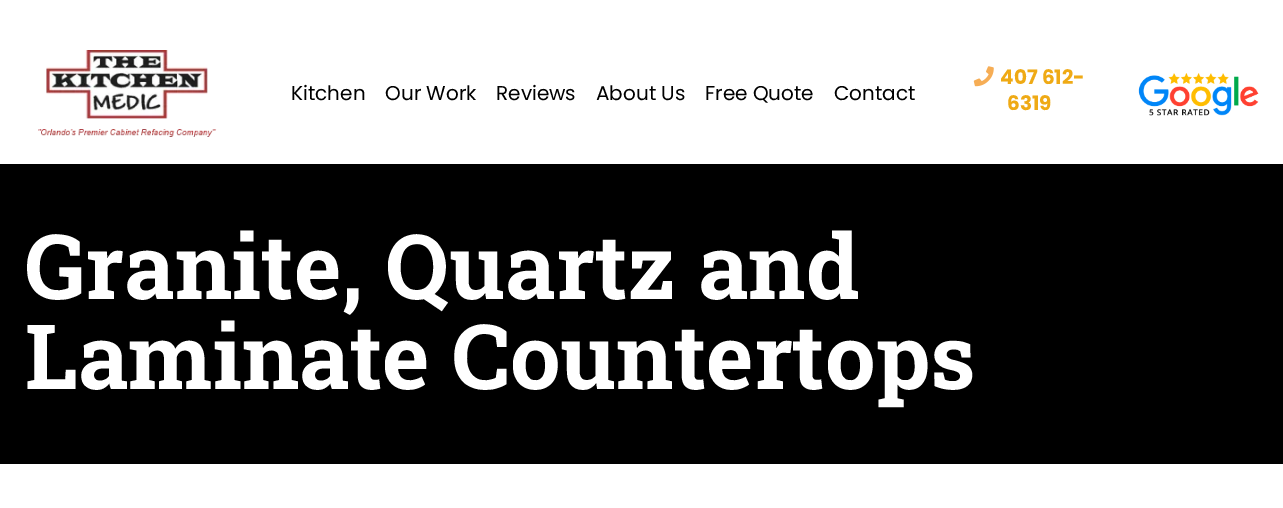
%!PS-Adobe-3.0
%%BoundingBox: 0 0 1283 508
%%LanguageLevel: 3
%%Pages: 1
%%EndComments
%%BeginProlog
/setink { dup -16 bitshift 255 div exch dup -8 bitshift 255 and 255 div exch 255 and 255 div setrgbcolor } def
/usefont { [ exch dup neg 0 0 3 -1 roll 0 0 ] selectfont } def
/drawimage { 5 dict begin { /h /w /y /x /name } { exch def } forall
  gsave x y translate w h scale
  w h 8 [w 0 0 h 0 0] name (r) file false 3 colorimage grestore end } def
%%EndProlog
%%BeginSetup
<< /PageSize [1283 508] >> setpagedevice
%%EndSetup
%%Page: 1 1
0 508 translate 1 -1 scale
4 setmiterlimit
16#FFFFFF setink
0 0 1283 508 rectfill
(img1.raw) 38 50 179 87 drawimage
/Poppins-Regular 20 usefont
16#000000 setink
[
    [(Kitchen) 291 100]
    [(Our Work) 385 100]
    [(Reviews) 496 100]
    [(About Us) 596 100]
    [(Free Quote) 705 100]
    [(Contact) 834 100]
] { aload pop moveto show } forall
(img2.raw) 973 66 21 21 drawimage
/Poppins-Bold 20 usefont
16#EFAA15 setink
1000 84 moveto (407 612-) show
1007 110 moveto (6319) show
(img3.raw) 1138 73 121 43 drawimage
16#000000 setink
0 164 1283 300 rectfill
/RobotoSlab-Bold 90 usefont
16#FFFFFF setink
25 299 moveto (Granite, Quartz and) show
25 389 moveto (Laminate Countertops) show
showpage
%%EOF
